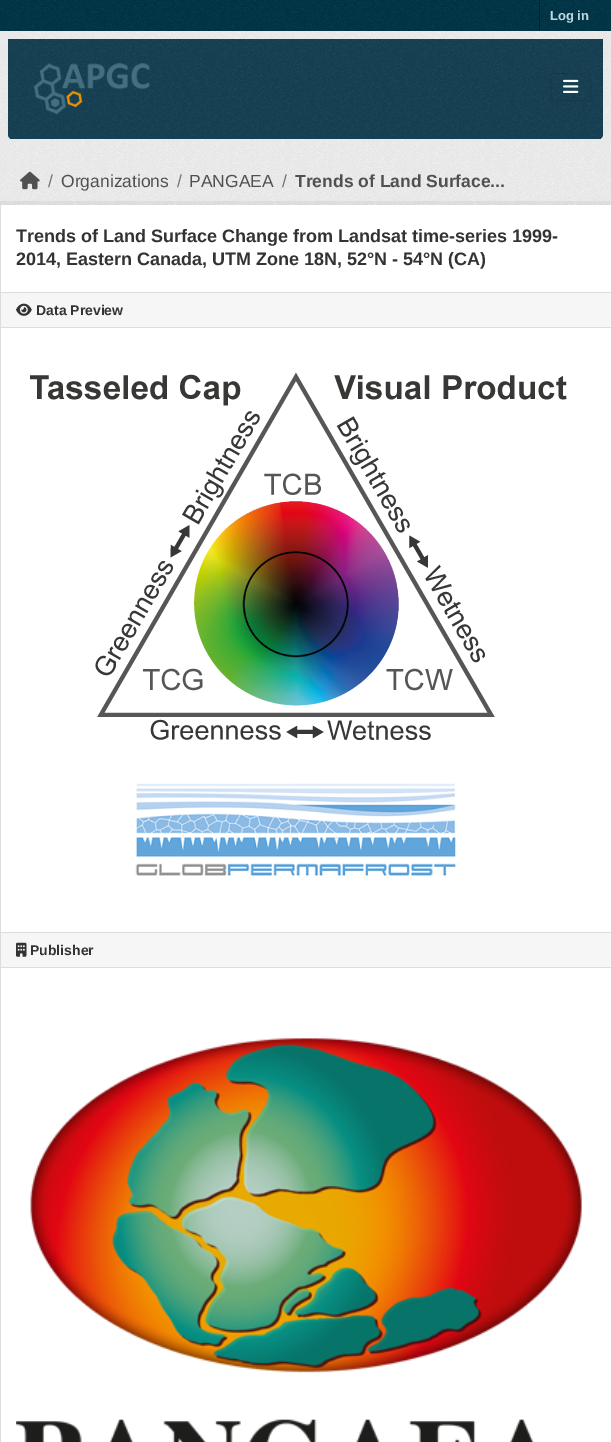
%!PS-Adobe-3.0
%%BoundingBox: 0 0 611 1442
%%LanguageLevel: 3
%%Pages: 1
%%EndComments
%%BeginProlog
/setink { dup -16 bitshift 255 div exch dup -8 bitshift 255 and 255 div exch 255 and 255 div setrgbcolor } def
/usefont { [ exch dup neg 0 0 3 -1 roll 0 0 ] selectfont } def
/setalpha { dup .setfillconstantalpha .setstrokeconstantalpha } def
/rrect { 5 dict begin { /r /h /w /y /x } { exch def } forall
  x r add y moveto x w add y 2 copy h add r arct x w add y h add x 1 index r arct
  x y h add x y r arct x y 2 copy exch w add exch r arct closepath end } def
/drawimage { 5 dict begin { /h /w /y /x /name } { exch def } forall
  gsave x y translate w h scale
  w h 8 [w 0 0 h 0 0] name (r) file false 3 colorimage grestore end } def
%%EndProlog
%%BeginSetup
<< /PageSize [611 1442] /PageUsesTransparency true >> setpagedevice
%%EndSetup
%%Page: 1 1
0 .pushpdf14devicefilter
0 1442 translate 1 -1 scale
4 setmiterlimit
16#003647 setink
0 0 611 1442 rectfill
(img1.raw) 0 0 611 31 drawimage
16#00232E setink
539 0 1 31 rectfill
/LiberationSans-Bold 13 usefont
16#BFD7DE setink
550 20 moveto (Log in) show
16#EEEEEE setink
0 31 611 174 rectfill
(img2.raw) 0 31 611 116 drawimage
16#164154 setink
8 39 moveto 603 39 lineto 603 135 lineto 603 137 601 139 599 139 curveto 12 139 lineto 10 139 8 137 8 135 curveto closepath fill
(img3.raw) 8 39 595 99 drawimage
10 135 591 4 rectfill
(img4.raw) 33 63 117 52 drawimage
0.1 setalpha
16#000000 setink
550.5 73.5 40 27 3.5 rrect stroke
1 setalpha
(img5.raw) 563 79 16 14 drawimage
(img6.raw) 0 147 611 58 drawimage
(img7.raw) 20 171 20 19 drawimage
/LiberationSans-Regular 17.5 usefont
16#6C757D setink
48 187 moveto (/) show
16#505050 setink
61 187 moveto (Organizations) show
16#6C757D setink
177 187 moveto (/) show
16#505050 setink
189 187 moveto (PANGAEA) show
16#6C757D setink
282 187 moveto (/) show
/LiberationSans-Bold 17.5 usefont
16#505050 setink
295 187 moveto (Trends of Land Surface...) show
0.05 setalpha
16#000000 setink
4 setlinewidth
-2 203 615 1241 rectstroke
1 setalpha
16#FFFFFF setink
1 205 610 1237 rectfill
16#DDDDDD setink
0 205 1 1237 rectfill
/LiberationSans-Bold 18 usefont
16#333333 setink
16 242 moveto (Trends of Land Surface Change from Landsat time-series 1999-) show
16 265 moveto (2014, Eastern Canada, UTM Zone 18N, 52°N - 54°N \(CA\)) show
[
    [1 293 610 34 16#F6F6F6]
    [1 292 610 1 16#DDDDDD]
    [1 327 610 1 16#DDDDDD]
] { aload pop setink rectfill } forall
(img8.raw) 16 303 16 13 drawimage
/LiberationSans-Bold 14 usefont
16#333333 setink
36 315 moveto (Data Preview) show
(img9.raw) 30 372 537 504 drawimage
[
    [1 933 610 34 16#F6F6F6]
    [1 932 610 1 16#DDDDDD]
    [1 967 610 1 16#DDDDDD]
] { aload pop setink rectfill } forall
(img10.raw) 16 942 11 15 drawimage
16#333333 setink
30 955 moveto (Publisher) show
(img11.raw) 16 1038 566 404 drawimage
.poppdf14devicefilter showpage
%%EOF
